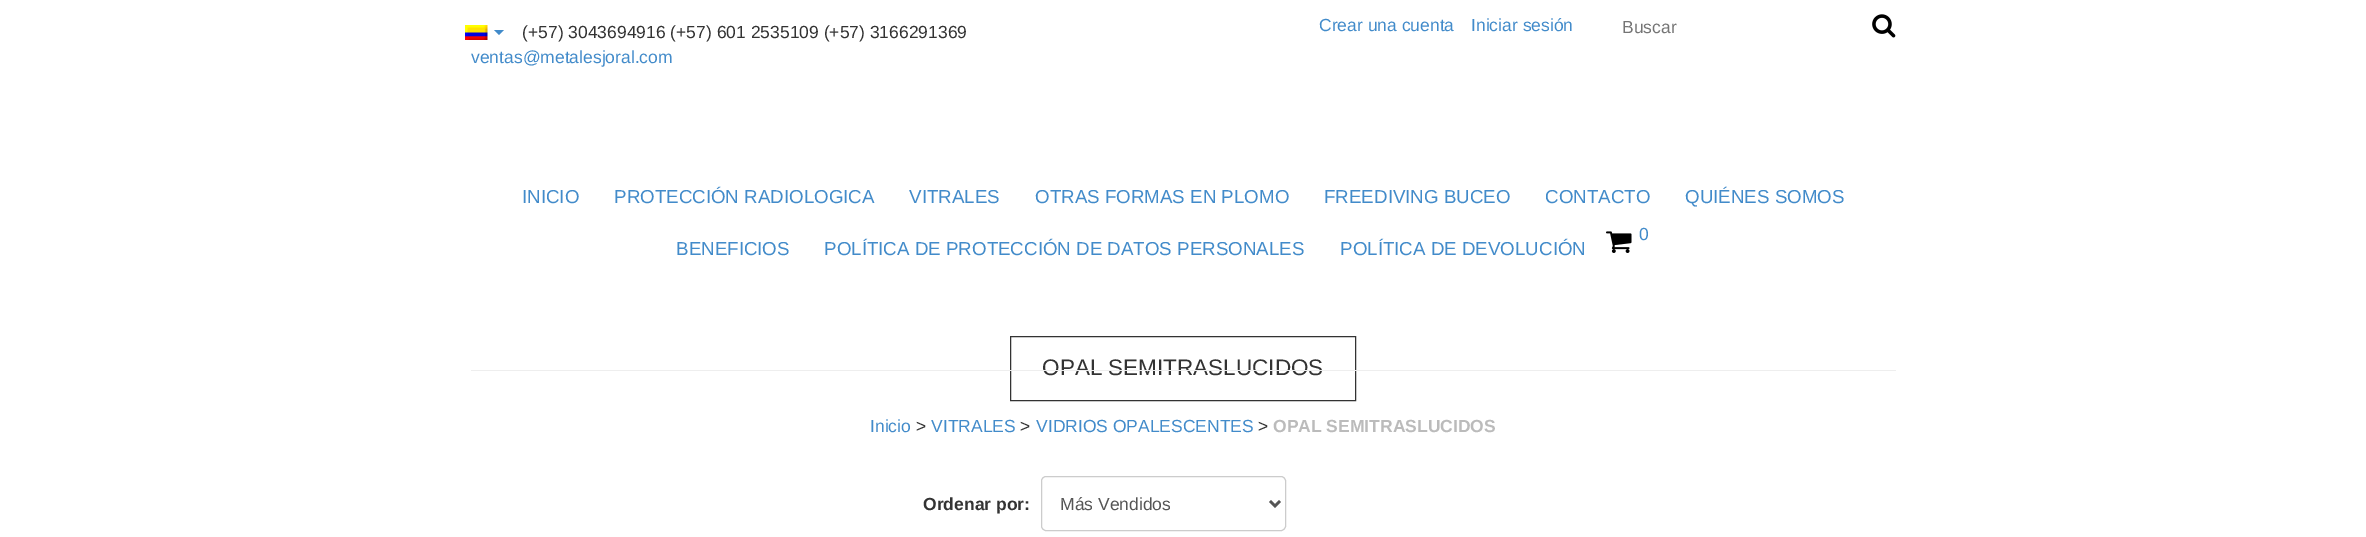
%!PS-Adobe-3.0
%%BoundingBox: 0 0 2366 537
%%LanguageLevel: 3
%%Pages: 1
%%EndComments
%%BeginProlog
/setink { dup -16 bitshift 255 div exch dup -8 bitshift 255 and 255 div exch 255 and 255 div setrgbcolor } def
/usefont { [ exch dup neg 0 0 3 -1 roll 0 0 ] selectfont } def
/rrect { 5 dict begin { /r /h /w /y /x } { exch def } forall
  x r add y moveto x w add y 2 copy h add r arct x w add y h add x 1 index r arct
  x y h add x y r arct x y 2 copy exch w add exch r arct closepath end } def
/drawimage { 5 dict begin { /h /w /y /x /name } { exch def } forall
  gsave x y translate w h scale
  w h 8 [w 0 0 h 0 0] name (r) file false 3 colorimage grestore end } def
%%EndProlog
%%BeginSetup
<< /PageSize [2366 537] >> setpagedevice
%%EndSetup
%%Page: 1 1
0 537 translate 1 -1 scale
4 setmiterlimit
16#FFFFFF setink
0 0 2366 537 rectfill
(img1.raw) 465 25 23 15 drawimage
16#428BCA setink
494 30 moveto 504 30 lineto 499 35 lineto closepath fill
/LiberationSans-Regular 17.5 usefont
16#333333 setink
522 38 moveto (\(+57\) 3043694916 \(+57\) 601 2535109 \(+57\) 3166291369) show
16#428BCA setink
[
    [(ventas@metalesjoral.com) 471 63]
    [(Crear una cuenta) 1319 31]
    [(Iniciar sesión) 1471 31]
] { aload pop moveto show } forall
16#757575 setink
1622 33 moveto (Buscar) show
(img2.raw) 1872 14 24 24 drawimage
/LiberationSans-Regular 18.75 usefont
16#428BCA setink
[
    [(INICIO) 522 203]
    [(PROTECCIÓN RADIOLOGICA) 614 203]
    [(VITRALES) 909 203]
    [(OTRAS FORMAS EN PLOMO) 1035 203]
    [(FREEDIVING BUCEO) 1324 203]
    [(CONTACTO) 1545 203]
    [(QUIÉNES SOMOS) 1685 203]
] { aload pop moveto show } forall
(img3.raw) 1606 231 26 22 drawimage
/LiberationSans-Regular 17.5 usefont
1639 240 moveto (0) show
/LiberationSans-Regular 18.75 usefont
[
    [(BENEFICIOS) 676 255]
    [(POLÍTICA DE PROTECCIÓN DE DATOS PERSONALES) 824 255]
    [(POLÍTICA DE DEVOLUCIÓN) 1340 255]
] { aload pop moveto show } forall
16#333333 setink
1010.5 336.5 345 64 rectstroke
/LiberationSans-Regular 22.5 usefont
1042 375 moveto (OPAL SEMITRASLUCIDOS) show
16#EEEEEE setink
471 370 1425 1 rectfill
/LiberationSans-Regular 17.5 usefont
16#428BCA setink
870 432 moveto (Inicio) show
16#333333 setink
916 432 moveto (>) show
16#428BCA setink
931 432 moveto (VITRALES) show
16#333333 setink
1020 432 moveto (>) show
16#428BCA setink
1036 432 moveto (VIDRIOS OPALESCENTES) show
16#333333 setink
1258 432 moveto (>) show
/LiberationSans-Bold 17.5 usefont
16#BBBBBB setink
1273 432 moveto (OPAL SEMITRASLUCIDOS) show
16#333333 setink
923 510 moveto (Ordenar por:) show
16#CCCCCC setink
1041.5 476.5 244 54 4.5 rrect stroke
16#555555 setink
2.5 setlinewidth
1270 501 moveto 1275 506 lineto 1280 501 lineto stroke
/LiberationSans-Regular 17.5 usefont
1060 510 moveto (Más Vendidos) show
showpage
%%EOF
